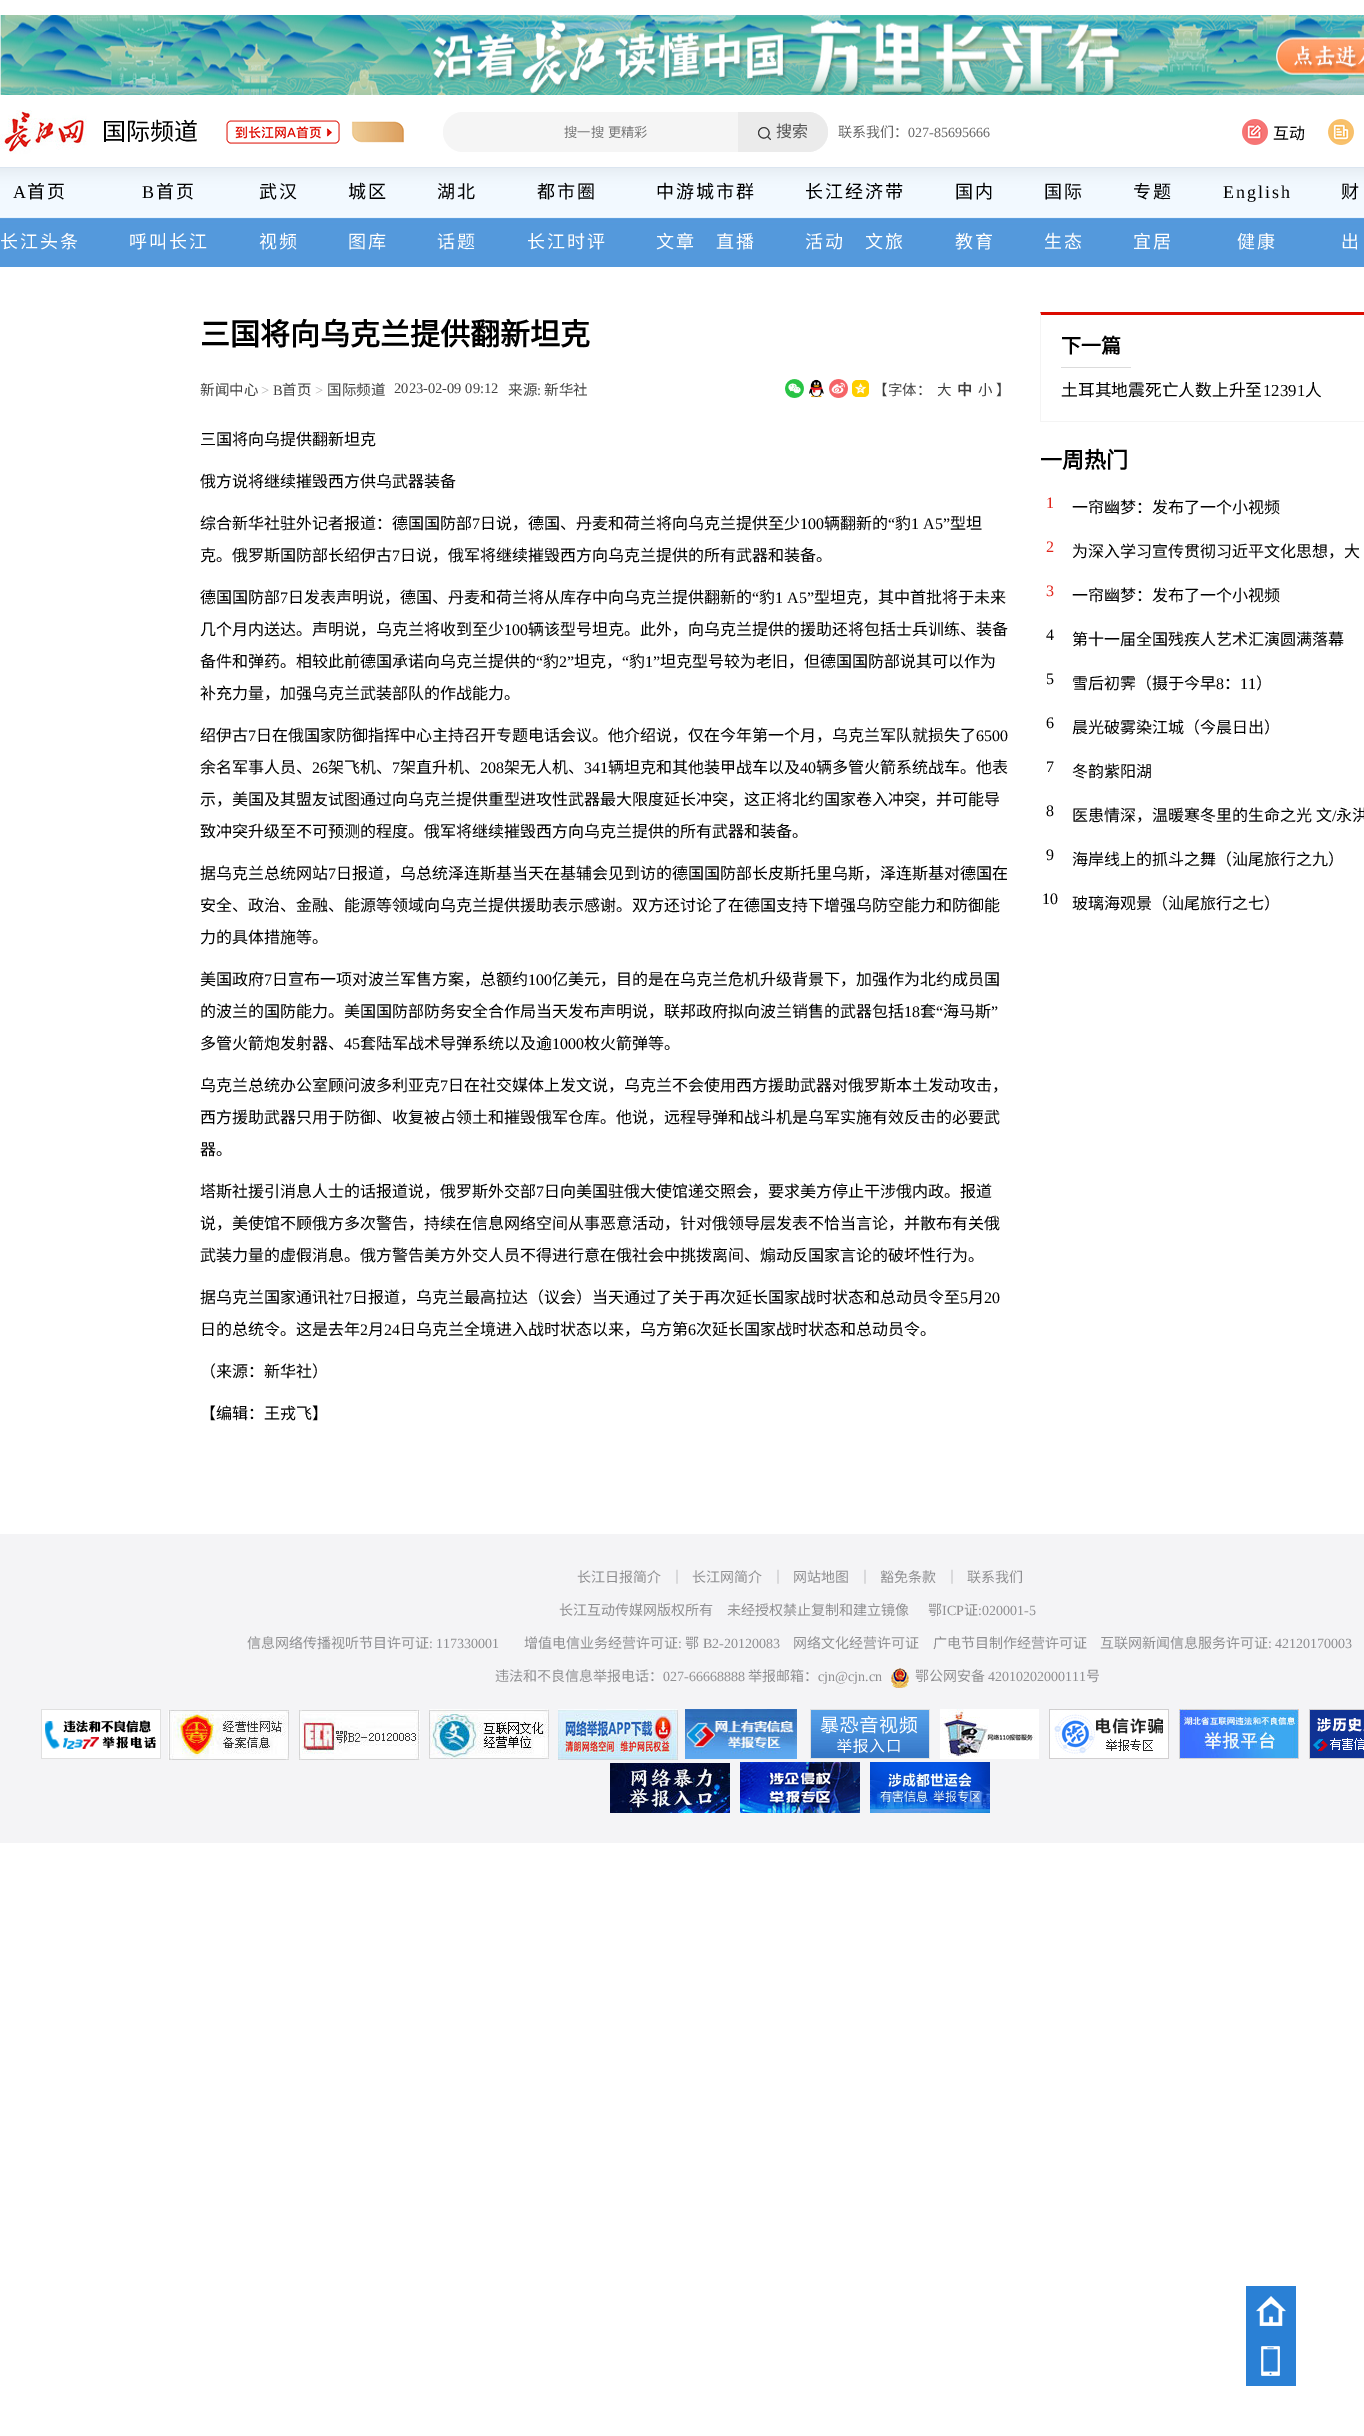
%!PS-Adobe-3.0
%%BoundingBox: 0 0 1364 2436
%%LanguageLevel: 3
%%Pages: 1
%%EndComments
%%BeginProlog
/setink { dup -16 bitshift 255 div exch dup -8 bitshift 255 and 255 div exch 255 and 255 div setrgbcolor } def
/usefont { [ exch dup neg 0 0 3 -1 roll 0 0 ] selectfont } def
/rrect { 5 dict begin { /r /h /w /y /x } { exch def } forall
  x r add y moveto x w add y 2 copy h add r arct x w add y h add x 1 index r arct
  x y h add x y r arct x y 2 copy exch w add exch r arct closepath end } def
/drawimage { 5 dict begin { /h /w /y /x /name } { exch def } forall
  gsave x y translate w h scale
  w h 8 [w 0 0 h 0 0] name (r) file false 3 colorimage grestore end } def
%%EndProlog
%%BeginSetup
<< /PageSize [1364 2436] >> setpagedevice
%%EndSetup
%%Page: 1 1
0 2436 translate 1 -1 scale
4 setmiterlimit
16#FFFFFF setink
0 0 1364 2436 rectfill
(img1.raw) 0 15 1364 80 drawimage
(img2.raw) 0 110 87 44 drawimage
/NotoSansCJKSC-Regular 24 usefont
16#000000 setink
102 140 moveto (国际频道) show
(img3.raw) 226 120 114 24 drawimage
(img4.raw) 351 121 53 22 drawimage
16#F5F5F5 setink
443 112 385 40 20 rrect fill
/NotoSansCJKSC-Regular 13.25 usefont
16#757575 setink
564 137 moveto 1 0 32 (搜一搜 更精彩) widthshow
16#EBEBEB setink
738 112 moveto 808 112 lineto 819 112 828 121 828 132 curveto 828 143 819 152 808 152 curveto 738 152 lineto closepath fill
(img5.raw) 758 127 13 13 drawimage
/NotoSansCJKSC-Regular 16 usefont
16#555555 setink
776 137 moveto (搜索) show
/NotoSansCJKSC-Regular 14 usefont
16#666666 setink
838 137 moveto (联系我们：) show
/LiberationSerif-Regular 14 usefont
908 137 moveto (027-85695666) show
(img6.raw) 1242 119 26 26 drawimage
/NotoSansCJKSC-Regular 16 usefont
16#000000 setink
1273 139 moveto (互动) show
(img7.raw) 1328 119 26 26 drawimage
(img8.raw) 0 167 1364 100 drawimage
/LiberationSerif-Regular 18 usefont
13 198 moveto 2 0 (A) ashow
/NotoSansCJKSC-Regular 18 usefont
27 198 moveto 2 0 (首页) ashow
16#FFFFFF setink
0 248 moveto 2 0 (长江头条) ashow
/LiberationSerif-Regular 18 usefont
16#000000 setink
142 198 moveto 2 0 (B) ashow
/NotoSansCJKSC-Regular 18 usefont
156 198 moveto 2 0 (首页) ashow
16#FFFFFF setink
129 248 moveto 2 0 (呼叫长江) ashow
16#000000 setink
259 198 moveto 2 0 (武汉) ashow
16#FFFFFF setink
259 248 moveto 2 0 (视频) ashow
16#000000 setink
348 198 moveto 2 0 (城区) ashow
16#FFFFFF setink
348 248 moveto 2 0 (图库) ashow
16#000000 setink
437 198 moveto 2 0 (湖北) ashow
16#FFFFFF setink
437 248 moveto 2 0 (话题) ashow
16#000000 setink
537 198 moveto 2 0 (都市圈) ashow
16#FFFFFF setink
527 248 moveto 2 0 (长江时评) ashow
16#000000 setink
656 198 moveto 2 0 (中游城市群) ashow
16#FFFFFF setink
656 248 moveto 2 0 (文章) ashow
716 248 moveto 2 0 (直播) ashow
16#000000 setink
805 198 moveto 2 0 (长江经济带) ashow
16#FFFFFF setink
805 248 moveto 2 0 (活动) ashow
865 248 moveto 2 0 (文旅) ashow
16#000000 setink
955 198 moveto 2 0 (国内) ashow
16#FFFFFF setink
955 248 moveto 2 0 (教育) ashow
16#000000 setink
1044 198 moveto 2 0 (国际) ashow
16#FFFFFF setink
1044 248 moveto 2 0 (生态) ashow
16#000000 setink
1133 198 moveto 2 0 (专题) ashow
16#FFFFFF setink
1133 248 moveto 2 0 (宜居) ashow
/LiberationSerif-Regular 18 usefont
16#000000 setink
1223 198 moveto 2 0 (English) ashow
/NotoSansCJKSC-Regular 18 usefont
16#FFFFFF setink
1237 248 moveto 2 0 (健康) ashow
16#000000 setink
1341 198 moveto 2 0 (财) ashow
16#FFFFFF setink
1341 248 moveto 2 0 (出) ashow
/NotoSansCJKSC-Bold 30 usefont
16#000000 setink
200 345 moveto (三国将向乌克兰提供翻新坦克) show
/NotoSansCJKSC-Regular 14.5 usefont
16#3F3F3F setink
200 395 moveto (新闻中心) show
/LiberationSerif-Regular 14.5 usefont
16#B8B8B8 setink
261 395 moveto (>) show
16#3F3F3F setink
273 395 moveto (B) show
/NotoSansCJKSC-Regular 14.5 usefont
282 395 moveto (首页) show
/LiberationSerif-Regular 14.5 usefont
16#B8B8B8 setink
315 395 moveto (>) show
/NotoSansCJKSC-Regular 14.5 usefont
16#3F3F3F setink
327 395 moveto (国际频道) show
/LiberationSerif-Regular 14.5 usefont
394 393 moveto (2023-02-09 09:12) show
/NotoSansCJKSC-Regular 14.5 usefont
508 395 moveto (来源) show
/LiberationSerif-Regular 14.5 usefont
537 395 moveto (:) show
/NotoSansCJKSC-Regular 14.5 usefont
544 395 moveto (新华社) show
(img9.raw) 785 379 19 19 drawimage
(img10.raw) 809 379 15 19 drawimage
(img11.raw) 829 379 19 19 drawimage
(img12.raw) 852 380 17 17 drawimage
873 395 moveto (【字体：) show
937 395 moveto (大) show
/NotoSansCJKSC-Bold 15 usefont
957 395 moveto (中) show
/NotoSansCJKSC-Regular 14.5 usefont
978 395 moveto (小 】) show
/NotoSansCJKSC-Regular 16 usefont
16#000000 setink
[
    [(三国将向乌提供翻新坦克) 200 445]
    [(俄方说将继续摧毁西方供乌武器装备) 200 487]
    [(综合新华社驻外记者报道：德国国防部) 200 529]
] { aload pop moveto show } forall
/LiberationSerif-Regular 16 usefont
472 529 moveto (7) show
/NotoSansCJKSC-Regular 16 usefont
480 529 moveto (日说，德国、丹麦和荷兰将向乌克兰提供至少) show
/LiberationSerif-Regular 16 usefont
800 529 moveto (100) show
/NotoSansCJKSC-Regular 16 usefont
824 529 moveto (辆翻新的) show
/LiberationSerif-Regular 16 usefont
888 529 moveto (“) show
/NotoSansCJKSC-Regular 16 usefont
895 529 moveto (豹) show
/LiberationSerif-Regular 16 usefont
911 529 moveto (1 A5”) show
/NotoSansCJKSC-Regular 16 usefont
950 529 moveto (型坦) show
200 561 moveto (克。俄罗斯国防部长绍伊古) show
/LiberationSerif-Regular 16 usefont
392 561 moveto (7) show
/NotoSansCJKSC-Regular 16 usefont
400 561 moveto (日说，俄军将继续摧毁西方向乌克兰提供的所有武器和装备。) show
200 603 moveto (德国国防部) show
/LiberationSerif-Regular 16 usefont
280 603 moveto (7) show
/NotoSansCJKSC-Regular 16 usefont
288 603 moveto (日发表声明说，德国、丹麦和荷兰将从库存中向乌克兰提供翻新的) show
/LiberationSerif-Regular 16 usefont
752 603 moveto (“) show
/NotoSansCJKSC-Regular 16 usefont
759 603 moveto (豹) show
/LiberationSerif-Regular 16 usefont
775 603 moveto (1 A5”) show
/NotoSansCJKSC-Regular 16 usefont
814 603 moveto (型坦克，其中首批将于未来) show
200 635 moveto (几个月内送达。声明说，乌克兰将收到至少) show
/LiberationSerif-Regular 16 usefont
504 635 moveto (100) show
/NotoSansCJKSC-Regular 16 usefont
528 635 moveto (辆该型号坦克。此外，向乌克兰提供的援助还将包括士兵训练、装备) show
200 667 moveto (备件和弹药。相较此前德国承诺向乌克兰提供的) show
/LiberationSerif-Regular 16 usefont
536 667 moveto (“) show
/NotoSansCJKSC-Regular 16 usefont
543 667 moveto (豹) show
/LiberationSerif-Regular 16 usefont
559 667 moveto (2”) show
/NotoSansCJKSC-Regular 16 usefont
574 667 moveto (坦克，) show
/LiberationSerif-Regular 16 usefont
622 667 moveto (“) show
/NotoSansCJKSC-Regular 16 usefont
629 667 moveto (豹) show
/LiberationSerif-Regular 16 usefont
645 667 moveto (1”) show
/NotoSansCJKSC-Regular 16 usefont
[
    [(坦克型号较为老旧，但德国国防部说其可以作为) 660 667]
    [(补充力量，加强乌克兰武装部队的作战能力。) 200 699]
    [(绍伊古) 200 741]
] { aload pop moveto show } forall
/LiberationSerif-Regular 16 usefont
248 741 moveto (7) show
/NotoSansCJKSC-Regular 16 usefont
256 741 moveto (日在俄国家防御指挥中心主持召开专题电话会议。他介绍说，仅在今年第一个月，乌克兰军队就损失了) show
/LiberationSerif-Regular 16 usefont
976 741 moveto (6500) show
/NotoSansCJKSC-Regular 16 usefont
200 773 moveto (余名军事人员、) show
/LiberationSerif-Regular 16 usefont
312 773 moveto (26) show
/NotoSansCJKSC-Regular 16 usefont
328 773 moveto (架飞机、) show
/LiberationSerif-Regular 16 usefont
392 773 moveto (7) show
/NotoSansCJKSC-Regular 16 usefont
400 773 moveto (架直升机、) show
/LiberationSerif-Regular 16 usefont
480 773 moveto (208) show
/NotoSansCJKSC-Regular 16 usefont
504 773 moveto (架无人机、) show
/LiberationSerif-Regular 16 usefont
584 773 moveto (341) show
/NotoSansCJKSC-Regular 16 usefont
608 773 moveto (辆坦克和其他装甲战车以及) show
/LiberationSerif-Regular 16 usefont
800 773 moveto (40) show
/NotoSansCJKSC-Regular 16 usefont
[
    [(辆多管火箭系统战车。他表) 816 773]
    [(示，美国及其盟友试图通过向乌克兰提供重型进攻性武器最大限度延长冲突，这正将北约国家卷入冲突，并可能导) 200 805]
    [(致冲突升级至不可预测的程度。俄军将继续摧毁西方向乌克兰提供的所有武器和装备。) 200 837]
    [(据乌克兰总统网站) 200 879]
] { aload pop moveto show } forall
/LiberationSerif-Regular 16 usefont
328 879 moveto (7) show
/NotoSansCJKSC-Regular 16 usefont
[
    [(日报道，乌总统泽连斯基当天在基辅会见到访的德国国防部长皮斯托里乌斯，泽连斯基对德国在) 336 879]
    [(安全、政治、金融、能源等领域向乌克兰提供援助表示感谢。双方还讨论了在德国支持下增强乌防空能力和防御能) 200 911]
    [(力的具体措施等。) 200 943]
    [(美国政府) 200 985]
] { aload pop moveto show } forall
/LiberationSerif-Regular 16 usefont
264 985 moveto (7) show
/NotoSansCJKSC-Regular 16 usefont
272 985 moveto (日宣布一项对波兰军售方案，总额约) show
/LiberationSerif-Regular 16 usefont
528 985 moveto (100) show
/NotoSansCJKSC-Regular 16 usefont
552 985 moveto (亿美元，目的是在乌克兰危机升级背景下，加强作为北约成员国) show
200 1017 moveto (的波兰的国防能力。美国国防部防务安全合作局当天发布声明说，联邦政府拟向波兰销售的武器包括) show
/LiberationSerif-Regular 16 usefont
904 1017 moveto (18) show
/NotoSansCJKSC-Regular 16 usefont
920 1017 moveto (套) show
/LiberationSerif-Regular 16 usefont
936 1017 moveto (“) show
/NotoSansCJKSC-Regular 16 usefont
943 1017 moveto (海马斯) show
/LiberationSerif-Regular 16 usefont
991 1017 moveto (”) show
/NotoSansCJKSC-Regular 16 usefont
200 1049 moveto (多管火箭炮发射器、) show
/LiberationSerif-Regular 16 usefont
344 1049 moveto (45) show
/NotoSansCJKSC-Regular 16 usefont
360 1049 moveto (套陆军战术导弹系统以及逾) show
/LiberationSerif-Regular 16 usefont
552 1049 moveto (1000) show
/NotoSansCJKSC-Regular 16 usefont
584 1049 moveto (枚火箭弹等。) show
200 1091 moveto (乌克兰总统办公室顾问波多利亚克) show
/LiberationSerif-Regular 16 usefont
440 1091 moveto (7) show
/NotoSansCJKSC-Regular 16 usefont
[
    [(日在社交媒体上发文说，乌克兰不会使用西方援助武器对俄罗斯本土发动攻击，) 448 1091]
    [(西方援助武器只用于防御、收复被占领土和摧毁俄军仓库。他说，远程导弹和战斗机是乌军实施有效反击的必要武) 200 1123]
    [(器。) 200 1155]
    [(塔斯社援引消息人士的话报道说，俄罗斯外交部) 200 1197]
] { aload pop moveto show } forall
/LiberationSerif-Regular 16 usefont
536 1197 moveto (7) show
/NotoSansCJKSC-Regular 16 usefont
[
    [(日向美国驻俄大使馆递交照会，要求美方停止干涉俄内政。报道) 544 1197]
    [(说，美使馆不顾俄方多次警告，持续在信息网络空间从事恶意活动，针对俄领导层发表不恰当言论，并散布有关俄) 200 1229]
    [(武装力量的虚假消息。俄方警告美方外交人员不得进行意在俄社会中挑拨离间、煽动反国家言论的破坏性行为。) 200 1261]
    [(据乌克兰国家通讯社) 200 1303]
] { aload pop moveto show } forall
/LiberationSerif-Regular 16 usefont
344 1303 moveto (7) show
/NotoSansCJKSC-Regular 16 usefont
352 1303 moveto (日报道，乌克兰最高拉达（议会）当天通过了关于再次延长国家战时状态和总动员令至) show
/LiberationSerif-Regular 16 usefont
960 1303 moveto (5) show
/NotoSansCJKSC-Regular 16 usefont
968 1303 moveto (月) show
/LiberationSerif-Regular 16 usefont
984 1303 moveto (20) show
/NotoSansCJKSC-Regular 16 usefont
200 1335 moveto (日的总统令。这是去年) show
/LiberationSerif-Regular 16 usefont
360 1335 moveto (2) show
/NotoSansCJKSC-Regular 16 usefont
368 1335 moveto (月) show
/LiberationSerif-Regular 16 usefont
384 1335 moveto (24) show
/NotoSansCJKSC-Regular 16 usefont
400 1335 moveto (日乌克兰全境进入战时状态以来，乌方第) show
/LiberationSerif-Regular 16 usefont
688 1335 moveto (6) show
/NotoSansCJKSC-Regular 16 usefont
[
    [(次延长国家战时状态和总动员令。) 696 1335]
    [(（来源：新华社）) 200 1377]
    [(【编辑：王戎飞】) 200 1419]
] { aload pop moveto show } forall
16#DC0A00 setink
1040 312 moveto 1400 312 lineto 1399 315 lineto 1041 315 lineto closepath fill
16#F4F4F4 setink
1040 421 324 1 rectfill
1040 422 moveto 1040 312 lineto 1041 315 lineto 1041 421 lineto closepath fill
16#DBDBDB setink
1061 367 70 1 rectfill
/NotoSansCJKSC-Bold 20 usefont
16#000000 setink
1061 353 moveto (下一篇) show
/NotoSansCJKSC-Regular 16.75 usefont
1061 396 moveto (土耳其地震死亡人数上升至) show
/LiberationSerif-Regular 16.75 usefont
1263 396 moveto (12391) show
/NotoSansCJKSC-Regular 16.75 usefont
1305 396 moveto (人) show
/NotoSansCJKSC-Bold 22 usefont
1040 468 moveto (一周热门) show
/LiberationSerif-Regular 16 usefont
16#E1251B setink
1046 508 moveto (1) show
/NotoSansCJKSC-Regular 16 usefont
16#000000 setink
1072 513 moveto (一帘幽梦：发布了一个小视频) show
/LiberationSerif-Regular 16 usefont
16#E1251B setink
1046 552 moveto (2) show
/NotoSansCJKSC-Regular 16 usefont
16#000000 setink
1072 557 moveto (为深入学习宣传贯彻习近平文化思想，大) show
/LiberationSerif-Regular 16 usefont
16#E1251B setink
1046 596 moveto (3) show
/NotoSansCJKSC-Regular 16 usefont
16#000000 setink
1072 601 moveto (一帘幽梦：发布了一个小视频) show
/LiberationSerif-Regular 16 usefont
1046 640 moveto (4) show
/NotoSansCJKSC-Regular 16 usefont
1072 645 moveto (第十一届全国残疾人艺术汇演圆满落幕) show
/LiberationSerif-Regular 16 usefont
1046 684 moveto (5) show
/NotoSansCJKSC-Regular 16 usefont
1072 689 moveto (雪后初霁（摄于今早) show
/LiberationSerif-Regular 16 usefont
1216 689 moveto (8) show
/NotoSansCJKSC-Regular 16 usefont
1224 689 moveto (：) show
/LiberationSerif-Regular 16 usefont
1240 689 moveto (11) show
/NotoSansCJKSC-Regular 16 usefont
1256 689 moveto (）) show
/LiberationSerif-Regular 16 usefont
1046 728 moveto (6) show
/NotoSansCJKSC-Regular 16 usefont
1072 733 moveto (晨光破雾染江城（今晨日出）) show
/LiberationSerif-Regular 16 usefont
1046 772 moveto (7) show
/NotoSansCJKSC-Regular 16 usefont
1072 777 moveto (冬韵紫阳湖) show
/LiberationSerif-Regular 16 usefont
1046 816 moveto (8) show
/NotoSansCJKSC-Regular 16 usefont
1072 821 moveto (医患情深，温暖寒冬里的生命之光) show
1316 821 moveto (文) show
/LiberationSerif-Regular 16 usefont
1332 821 moveto (/) show
/NotoSansCJKSC-Regular 16 usefont
1336 821 moveto (永洪) show
/LiberationSerif-Regular 16 usefont
1046 860 moveto (9) show
/NotoSansCJKSC-Regular 16 usefont
1072 865 moveto (海岸线上的抓斗之舞（汕尾旅行之九）) show
/LiberationSerif-Regular 16 usefont
1042 904 moveto (10) show
/NotoSansCJKSC-Regular 16 usefont
1072 909 moveto (玻璃海观景（汕尾旅行之七）) show
16#F4F4F6 setink
0 1534 1364 309 rectfill
/NotoSansCJKSC-Regular 14 usefont
16#8F8F91 setink
[
    [(长江日报简介) 577 1582]
    [(｜) 670 1582]
    [(长江网简介) 692 1582]
    [(｜) 771 1582]
    [(网站地图) 793 1582]
    [(｜) 858 1582]
    [(豁免条款) 880 1582]
    [(｜) 945 1582]
    [(联系我们) 967 1582]
    [(长江互动传媒网版权所有) 559 1615]
    [(未经授权禁止复制和建立镜像) 727 1615]
    [(鄂) 928 1615]
] { aload pop moveto show } forall
/LiberationSerif-Regular 14 usefont
942 1615 moveto (ICP) show
/NotoSansCJKSC-Regular 14 usefont
964 1615 moveto (证) show
/LiberationSerif-Regular 14 usefont
978 1615 moveto (:020001-5) show
/NotoSansCJKSC-Regular 14 usefont
247 1648 moveto (信息网络传播视听节目许可证) show
/LiberationSerif-Regular 14 usefont
429 1648 moveto (: 117330001) show
/NotoSansCJKSC-Regular 14 usefont
524 1648 moveto (增值电信业务经营许可证) show
/LiberationSerif-Regular 14 usefont
678 1648 moveto (:) show
/NotoSansCJKSC-Regular 14 usefont
685 1648 moveto (鄂) show
/LiberationSerif-Regular 14 usefont
703 1648 moveto (B2-20120083) show
/NotoSansCJKSC-Regular 14 usefont
[
    [(网络文化经营许可证) 793 1648]
    [(广电节目制作经营许可证) 933 1648]
    [(互联网新闻信息服务许可证) 1100 1648]
] { aload pop moveto show } forall
/LiberationSerif-Regular 14 usefont
1268 1648 moveto (: 42120170003) show
/NotoSansCJKSC-Regular 14 usefont
495 1681 moveto (违法和不良信息举报电话：) show
/LiberationSerif-Regular 14 usefont
663 1681 moveto (027-66668888) show
/NotoSansCJKSC-Regular 14 usefont
748 1681 moveto (举报邮箱：) show
/LiberationSerif-Regular 14 usefont
818 1681 moveto (cjn@cjn.cn) show
(img13.raw) 891 1668 18 20 drawimage
/NotoSansCJKSC-Regular 14 usefont
915 1681 moveto (鄂公网安备) show
/LiberationSerif-Regular 14 usefont
988 1681 moveto (42010202000111) show
/NotoSansCJKSC-Regular 14 usefont
1086 1681 moveto (号) show
(img14.raw) 41 1709 120 50 drawimage
(img15.raw) 168 1709 510 51 drawimage
(img16.raw) 685 1709 112 50 drawimage
(img17.raw) 810 1709 120 50 drawimage
(img18.raw) 940 1709 99 50 drawimage
(img19.raw) 1049 1709 120 50 drawimage
(img20.raw) 1179 1709 120 50 drawimage
(img21.raw) 1309 1709 55 50 drawimage
(img22.raw) 610 1763 120 50 drawimage
(img23.raw) 740 1762 120 51 drawimage
(img24.raw) 870 1762 120 51 drawimage
16#2A80D5 setink
1246 2286 50 100 rectfill
(img25.raw) 1256 2296 30 30 drawimage
(img26.raw) 1261 2346 19 30 drawimage
showpage
%%EOF
